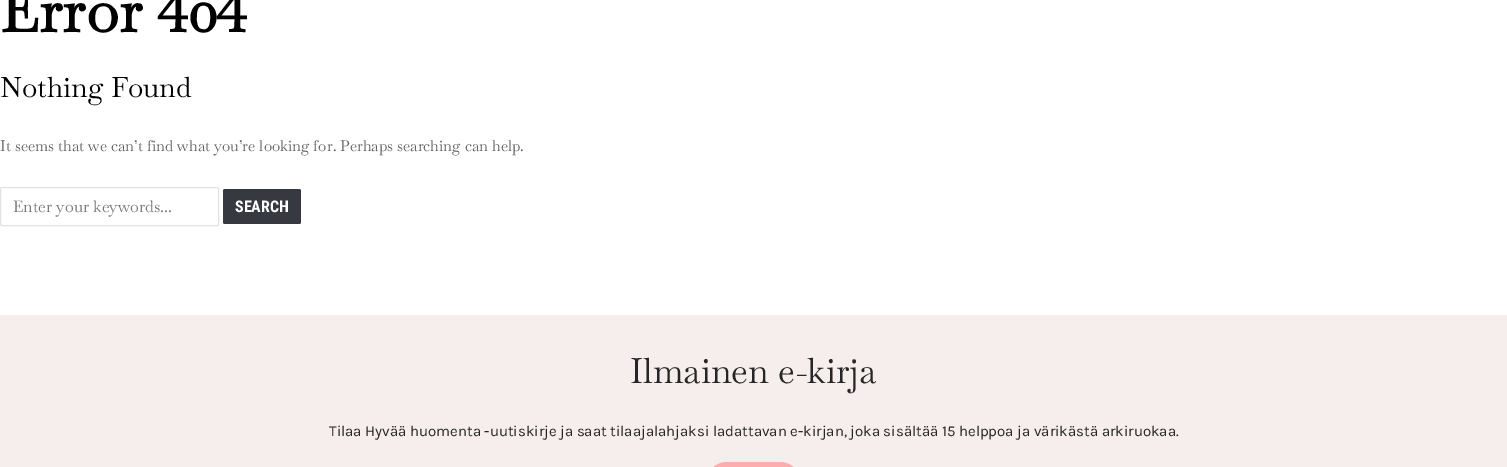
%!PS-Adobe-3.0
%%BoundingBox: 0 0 1507 467
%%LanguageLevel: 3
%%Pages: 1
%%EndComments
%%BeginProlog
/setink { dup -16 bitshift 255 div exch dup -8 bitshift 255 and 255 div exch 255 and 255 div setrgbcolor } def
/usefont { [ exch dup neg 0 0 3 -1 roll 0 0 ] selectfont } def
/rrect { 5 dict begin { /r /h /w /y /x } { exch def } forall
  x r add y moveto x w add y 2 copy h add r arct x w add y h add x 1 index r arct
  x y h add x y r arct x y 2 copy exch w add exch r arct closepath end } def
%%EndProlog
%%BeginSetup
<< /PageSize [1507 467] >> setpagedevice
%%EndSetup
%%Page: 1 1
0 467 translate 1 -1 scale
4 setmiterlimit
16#FFFFFF setink
0 0 1507 467 rectfill
/Baskervville-Bold 60 usefont
16#000000 setink
0 32 moveto (Error 404) show
/Baskervville-Regular 28 usefont
0 97 moveto (Nothing Found) show
/Baskervville-Regular 15 usefont
16#5E5E5E setink
0 151 moveto (It seems that we can’t find what you’re looking for. Perhaps searching can help.) show
16#E2E2E2 setink
0.5 187.5 218 38 1.5 rrect stroke
/Baskervville-Regular 16 usefont
16#757575 setink
13 212 moveto (Enter your keywords...) show
16#363940 setink
223 189 78 35 2 rrect fill
/RobotoCondensed-Bold 16 usefont
16#FFFFFF setink
235 212 moveto (SEARCH) show
16#F6EEEC setink
0 315 1507 152 rectfill
/Baskervville-Regular 35 usefont
16#262626 setink
630 383 moveto (Ilmainen e-kirja) show
/Karla-Regular 15 usefont
329 436 moveto (Tilaa Hyvää huomenta -uutiskirje ja saat tilaajalahjaksi ladattavan e-kirjan, joka sisältää 15 helppoa ja värikästä arkiruokaa.) show
16#FDADAD setink
706 462 95 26 21 rrect fill
showpage
%%EOF
